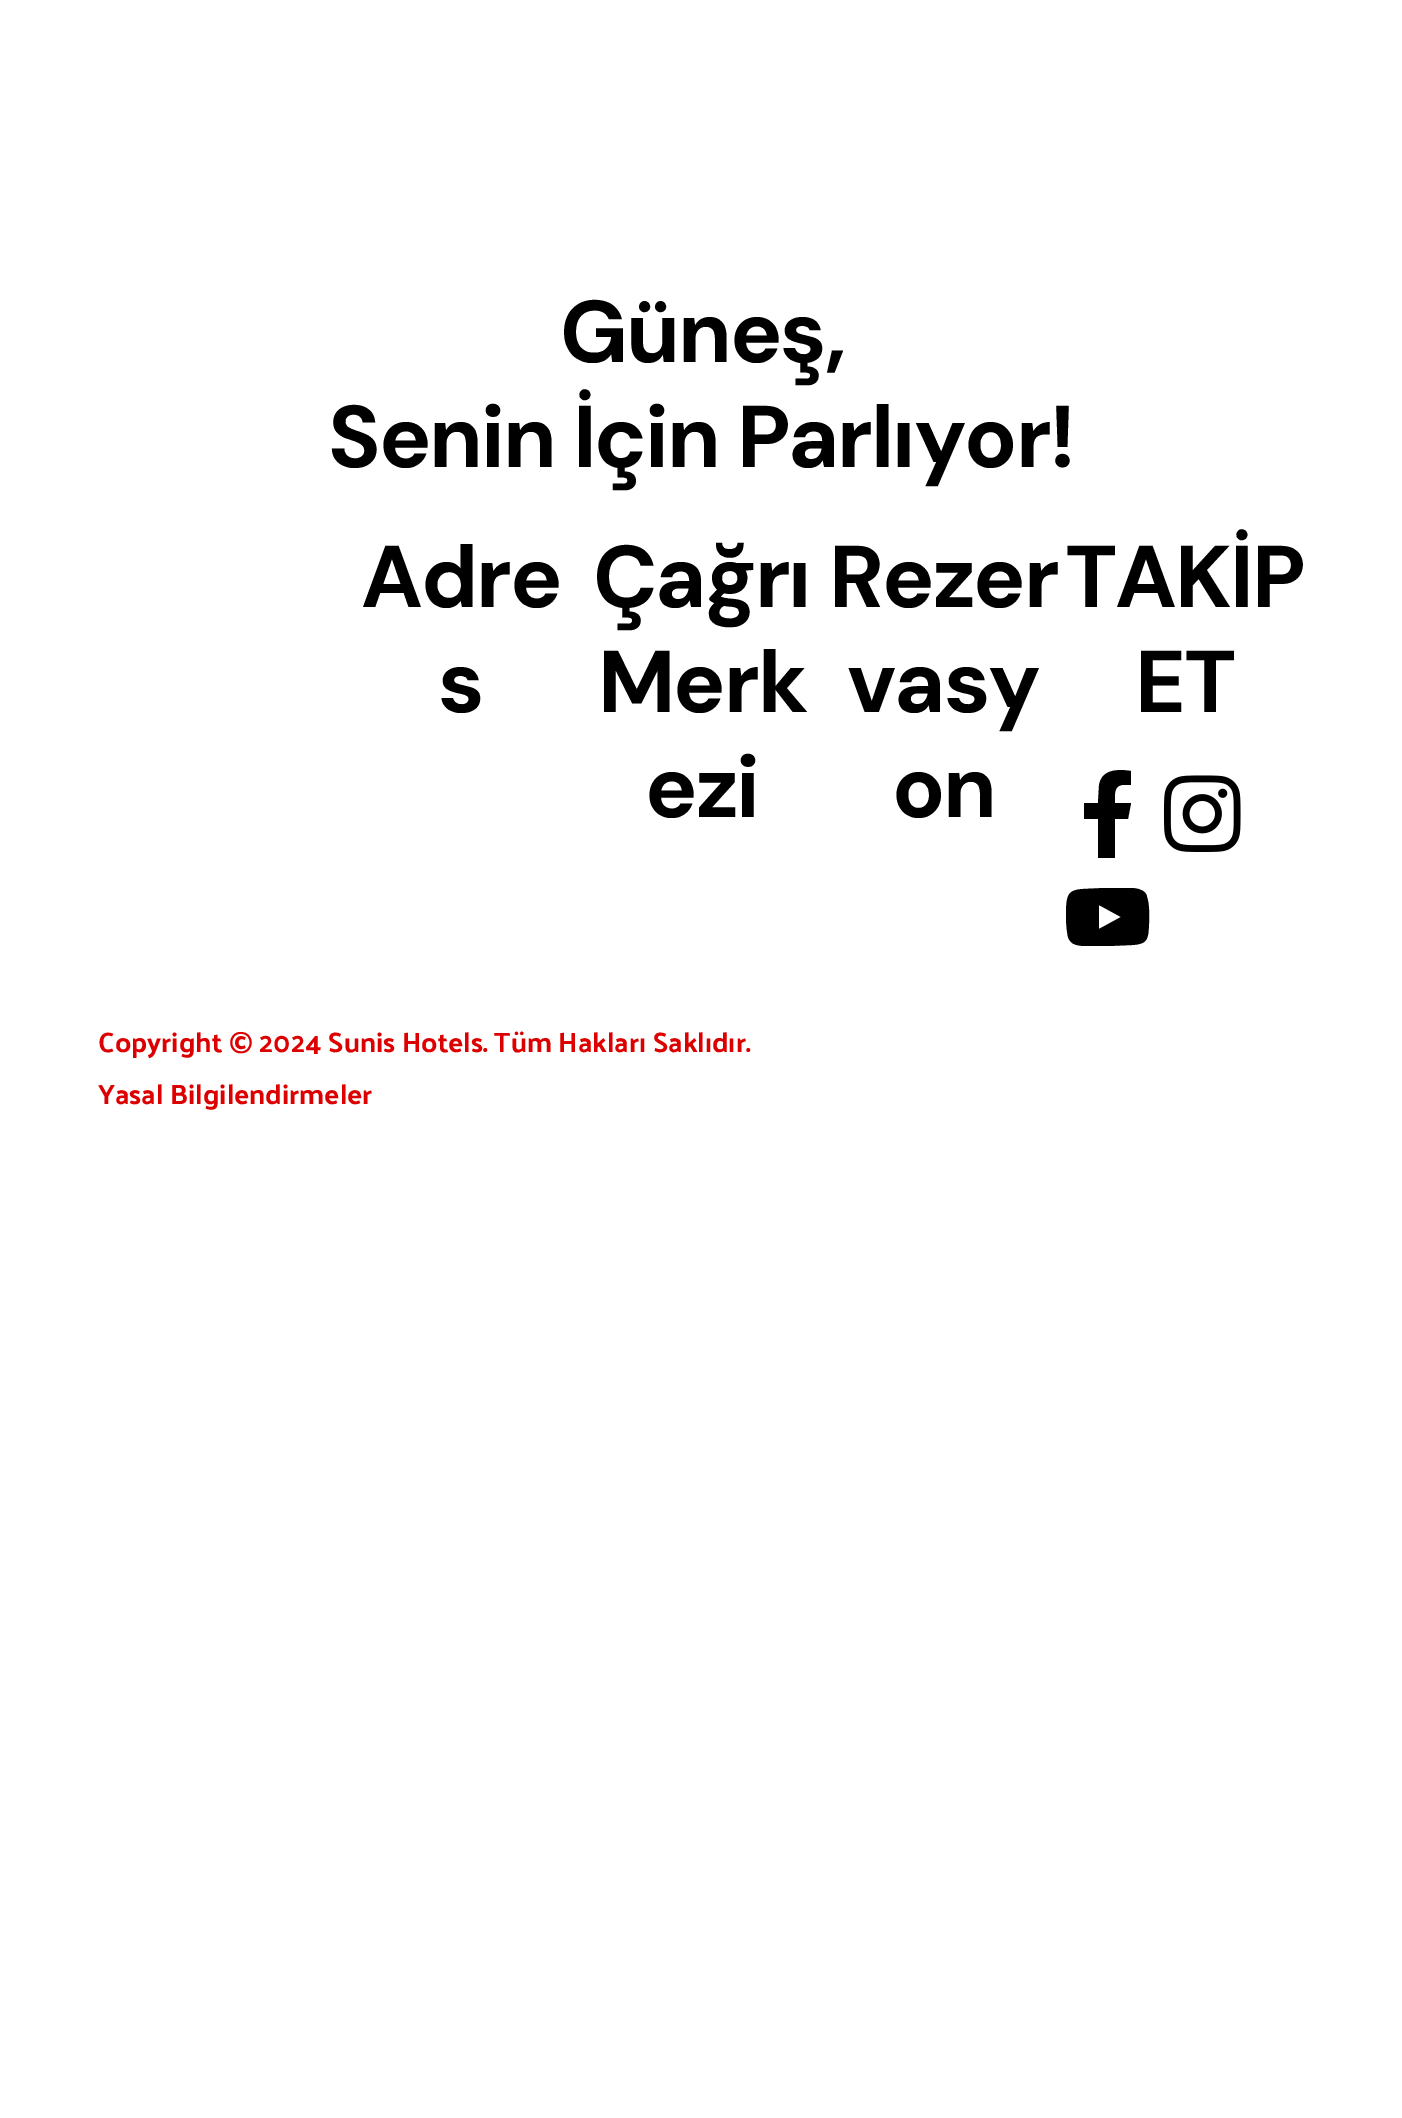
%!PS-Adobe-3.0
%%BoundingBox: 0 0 1402 2118
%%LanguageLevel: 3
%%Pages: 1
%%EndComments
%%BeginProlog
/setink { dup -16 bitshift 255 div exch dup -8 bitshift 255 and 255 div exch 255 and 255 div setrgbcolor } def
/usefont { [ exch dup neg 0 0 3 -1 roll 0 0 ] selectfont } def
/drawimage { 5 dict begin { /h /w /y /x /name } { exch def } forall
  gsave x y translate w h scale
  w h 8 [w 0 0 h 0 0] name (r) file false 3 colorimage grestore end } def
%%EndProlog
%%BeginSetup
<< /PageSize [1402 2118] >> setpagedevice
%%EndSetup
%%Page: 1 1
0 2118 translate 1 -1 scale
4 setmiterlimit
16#FFFFFF setink
0 0 1402 2118 rectfill
/DMSans-Bold 87.5 usefont
16#000000 setink
560 362 moveto -2.1 0 (Güneş,) ashow
328 467 moveto -1 0 32 -2.1 0 (Senin İçin Parlıyor!) awidthshow
361 607 moveto -2.1 0 (Adre) ashow
438 712 moveto -2.1 0 (s) ashow
593 607 moveto -2.1 0 (Çağrı) ashow
598 712 moveto -2.1 0 (Merk) ashow
645 817 moveto -2.1 0 (ezi) ashow
829 607 moveto -2.1 0 (Rezer) ashow
847 712 moveto -2.1 0 (vasy) ashow
892 817 moveto -2.1 0 (on) ashow
1065 607 moveto -2.1 0 (TAKİP) ashow
1135 712 moveto -2.1 0 (ET) ashow
1128 819 moveto 1131 803 lineto 1115 803 lineto 1115 797 1113 786 1122 785 curveto 1131 785 lineto 1131 771 lineto 1118 769 1101 769 1099 786 curveto 1098 803 lineto 1084 803 lineto 1084 819 lineto 1098 819 lineto 1098 858 lineto 1115 858 lineto 1115 819 lineto closepath fill
(img1.raw) 1163 775 78 77 drawimage
1147 897 moveto 1147 894 1144 891 1141 890 curveto 1137 888 1132 888 1127 888 curveto 1104 888 lineto 1083 889 lineto 1068 890 1067 895 1066 909 curveto 1066 919 1066 928 1068 937 curveto 1069 940 1071 943 1074 944 curveto 1078 946 1084 946 1088 946 curveto 1109 946 lineto 1132 945 lineto 1148 944 1148 939 1149 925 curveto 1149 916 1150 906 1147 897 curveto closepath 1099 929 moveto 1099 905 lineto 1121 917 lineto closepath fill
/PalanquinDark-Regular 28 usefont
16#DD0000 setink
98 1052 moveto (Copyright © 2024 Sunis Hotels. Tüm Hakları Saklıdır.) show
98 1104 moveto (Yasal Bilgilendirmeler) show
showpage
%%EOF
